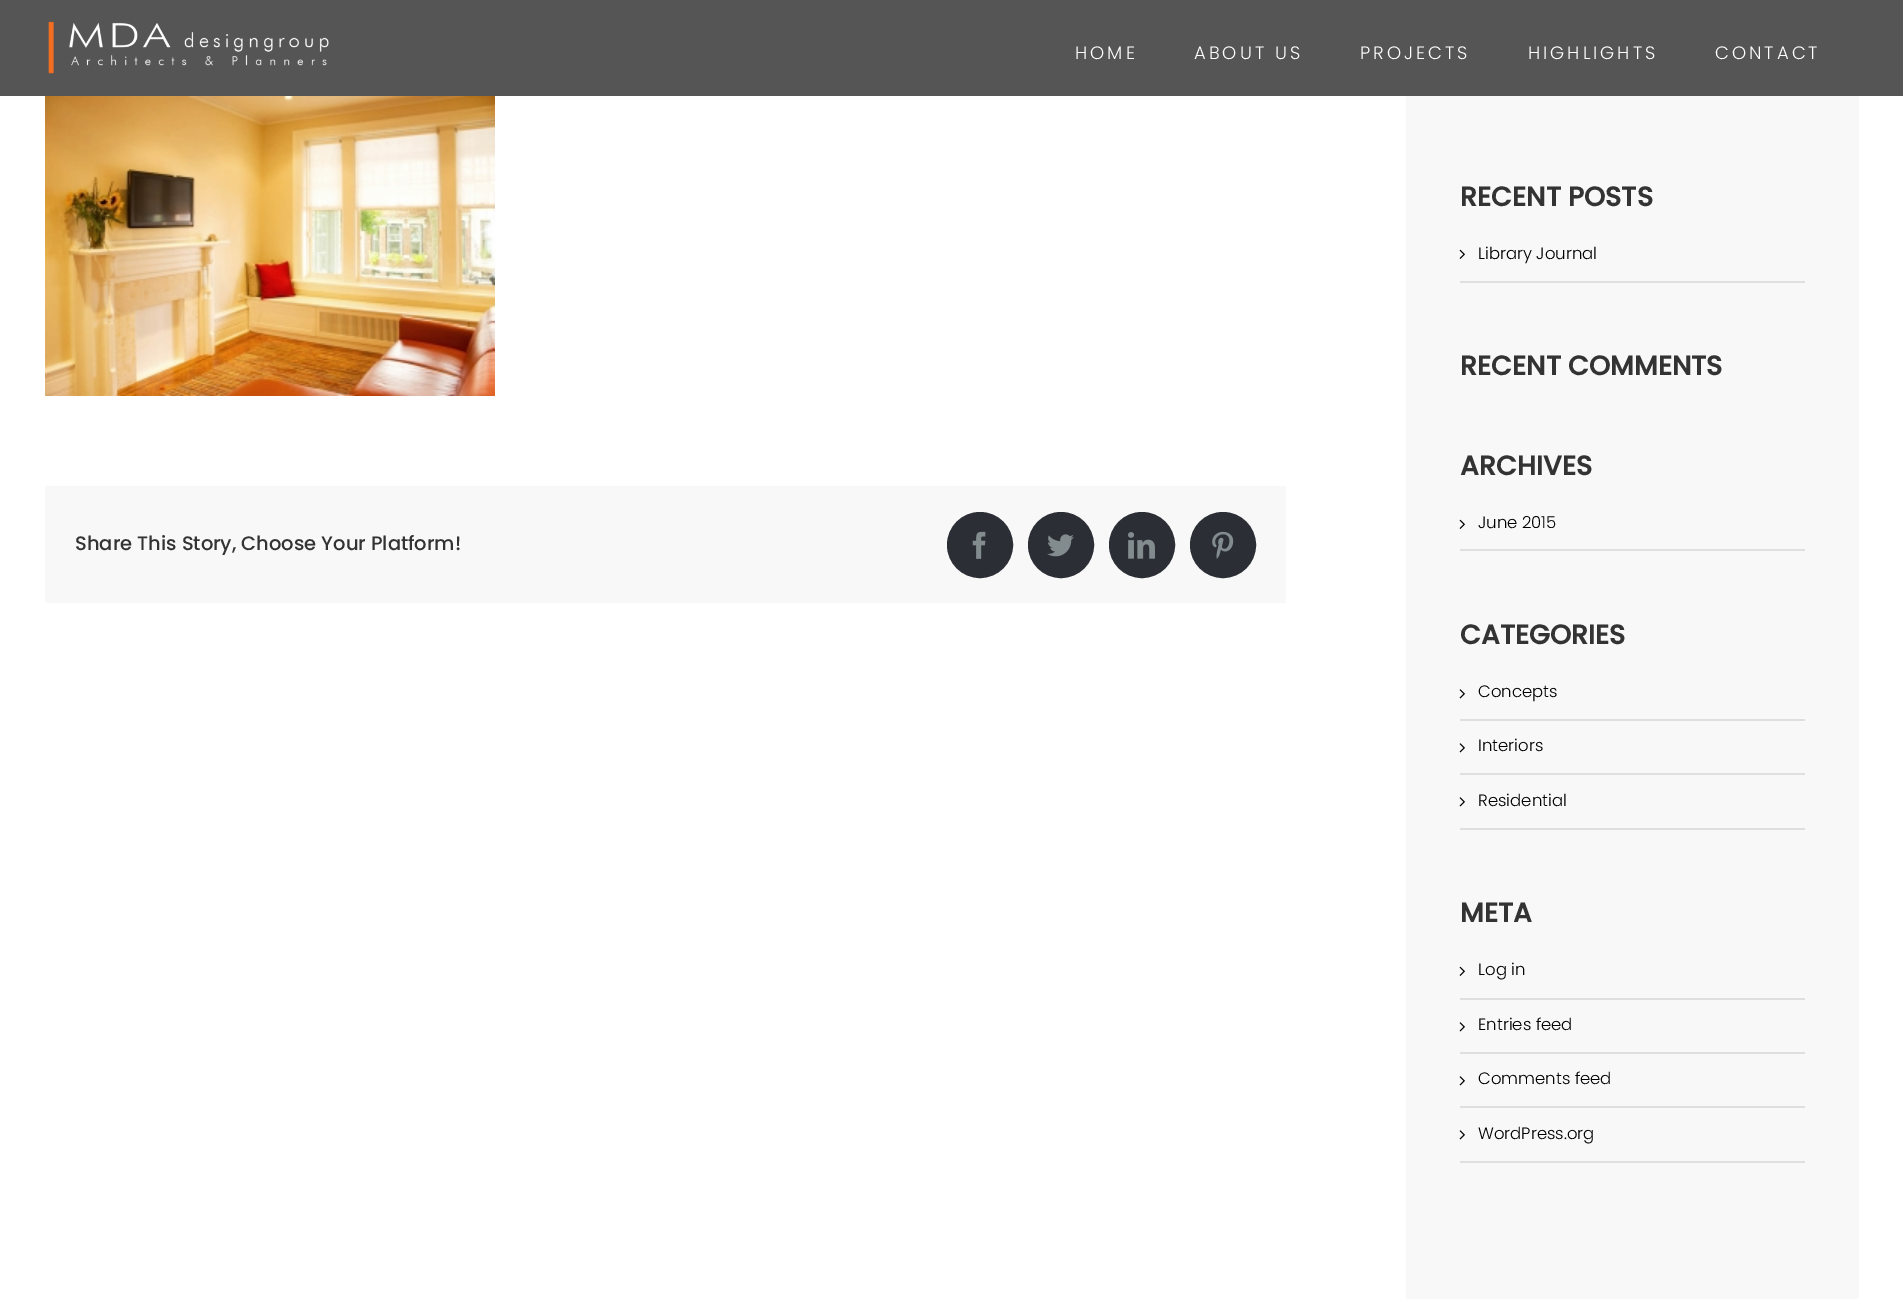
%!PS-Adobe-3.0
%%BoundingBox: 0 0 1903 1299
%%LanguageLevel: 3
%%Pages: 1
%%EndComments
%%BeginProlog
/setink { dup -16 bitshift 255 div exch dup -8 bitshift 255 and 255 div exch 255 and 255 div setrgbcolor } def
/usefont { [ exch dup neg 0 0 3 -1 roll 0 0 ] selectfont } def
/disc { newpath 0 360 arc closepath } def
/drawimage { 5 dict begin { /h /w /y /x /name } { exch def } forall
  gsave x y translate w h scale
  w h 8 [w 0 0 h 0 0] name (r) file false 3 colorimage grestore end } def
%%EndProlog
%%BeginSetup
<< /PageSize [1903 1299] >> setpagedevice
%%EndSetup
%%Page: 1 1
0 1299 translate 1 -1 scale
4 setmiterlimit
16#FFFFFF setink
0 0 1903 1299 rectfill
16#555555 setink
0 0 1903 96 rectfill
(img1.raw) 48 21 281 53 drawimage
/Poppins-Light 18 usefont
16#FFFFFF setink
1075 59 moveto 3 0 (HOME) ashow
1194 59 moveto 3 0 (ABOUT US) ashow
1360 59 moveto 3 0 (PROJECTS) ashow
1528 59 moveto 3 0 (HIGHLIGHTS) ashow
1715 59 moveto 3 0 (CONTACT) ashow
(img2.raw) 45 96 450 300 drawimage
16#F8F8F8 setink
45 486 1241 117 rectfill
/Poppins-Medium 19.5 usefont
16#333333 setink
75 550 moveto (Share This Story, Choose Your Platform!) show
16#2B2E35 setink
980 545 32 disc gsave fill grestore
2 setlinewidth
stroke
(img3.raw) 972 531 14 28 drawimage
1061 545 32 disc gsave fill grestore
stroke
(img4.raw) 1047 534 27 23 drawimage
1142 545 32 disc gsave fill grestore
stroke
(img5.raw) 1128 532 27 27 drawimage
1223 545 32 disc gsave fill grestore
stroke
(img6.raw) 1212 531 22 28 drawimage
16#F8F8F8 setink
1406 96 453 1203 rectfill
/Poppins-Bold 27 usefont
16#333333 setink
1460 206 moveto (RECENT POSTS) show
16#E0DEDE setink
1460 281 345 2 rectfill
(img7.raw) 1459 249 6 10 drawimage
/Poppins-Light 16.5 usefont
16#000000 setink
1478 259 moveto (Library Journal) show
/Poppins-Bold 27 usefont
16#333333 setink
1460 375 moveto (RECENT COMMENTS) show
1460 475 moveto (ARCHIVES) show
16#E0DEDE setink
1460 549 345 2 rectfill
(img7.raw) 1459 519 6 10 drawimage
/Poppins-Light 16.5 usefont
16#000000 setink
1478 528 moveto (June 2015) show
/Poppins-Bold 27 usefont
16#333333 setink
1460 644 moveto (CATEGORIES) show
16#E0DEDE setink
1460 719 345 2 rectfill
(img8.raw) 1459 689 6 10 drawimage
/Poppins-Light 16.5 usefont
16#000000 setink
1478 697 moveto (Concepts) show
16#E0DEDE setink
1460 773 345 2 rectfill
(img8.raw) 1459 743 6 10 drawimage
16#000000 setink
1478 751 moveto (Interiors) show
16#E0DEDE setink
1460 828 345 2 rectfill
(img8.raw) 1459 797 6 10 drawimage
16#000000 setink
1478 806 moveto (Residential) show
/Poppins-Bold 27 usefont
16#333333 setink
1460 922 moveto (META) show
16#E0DEDE setink
1460 998 345 2 rectfill
(img7.raw) 1459 966 6 10 drawimage
/Poppins-Light 16.5 usefont
16#000000 setink
1478 975 moveto (Log in) show
16#E0DEDE setink
1460 1052 345 2 rectfill
(img8.raw) 1459 1022 6 10 drawimage
16#000000 setink
1478 1030 moveto (Entries feed) show
16#E0DEDE setink
1460 1106 345 2 rectfill
(img8.raw) 1459 1076 6 10 drawimage
16#000000 setink
1478 1084 moveto (Comments feed) show
16#E0DEDE setink
1460 1161 345 2 rectfill
(img8.raw) 1459 1130 6 10 drawimage
16#000000 setink
1478 1139 moveto (WordPress.org) show
showpage
%%EOF
